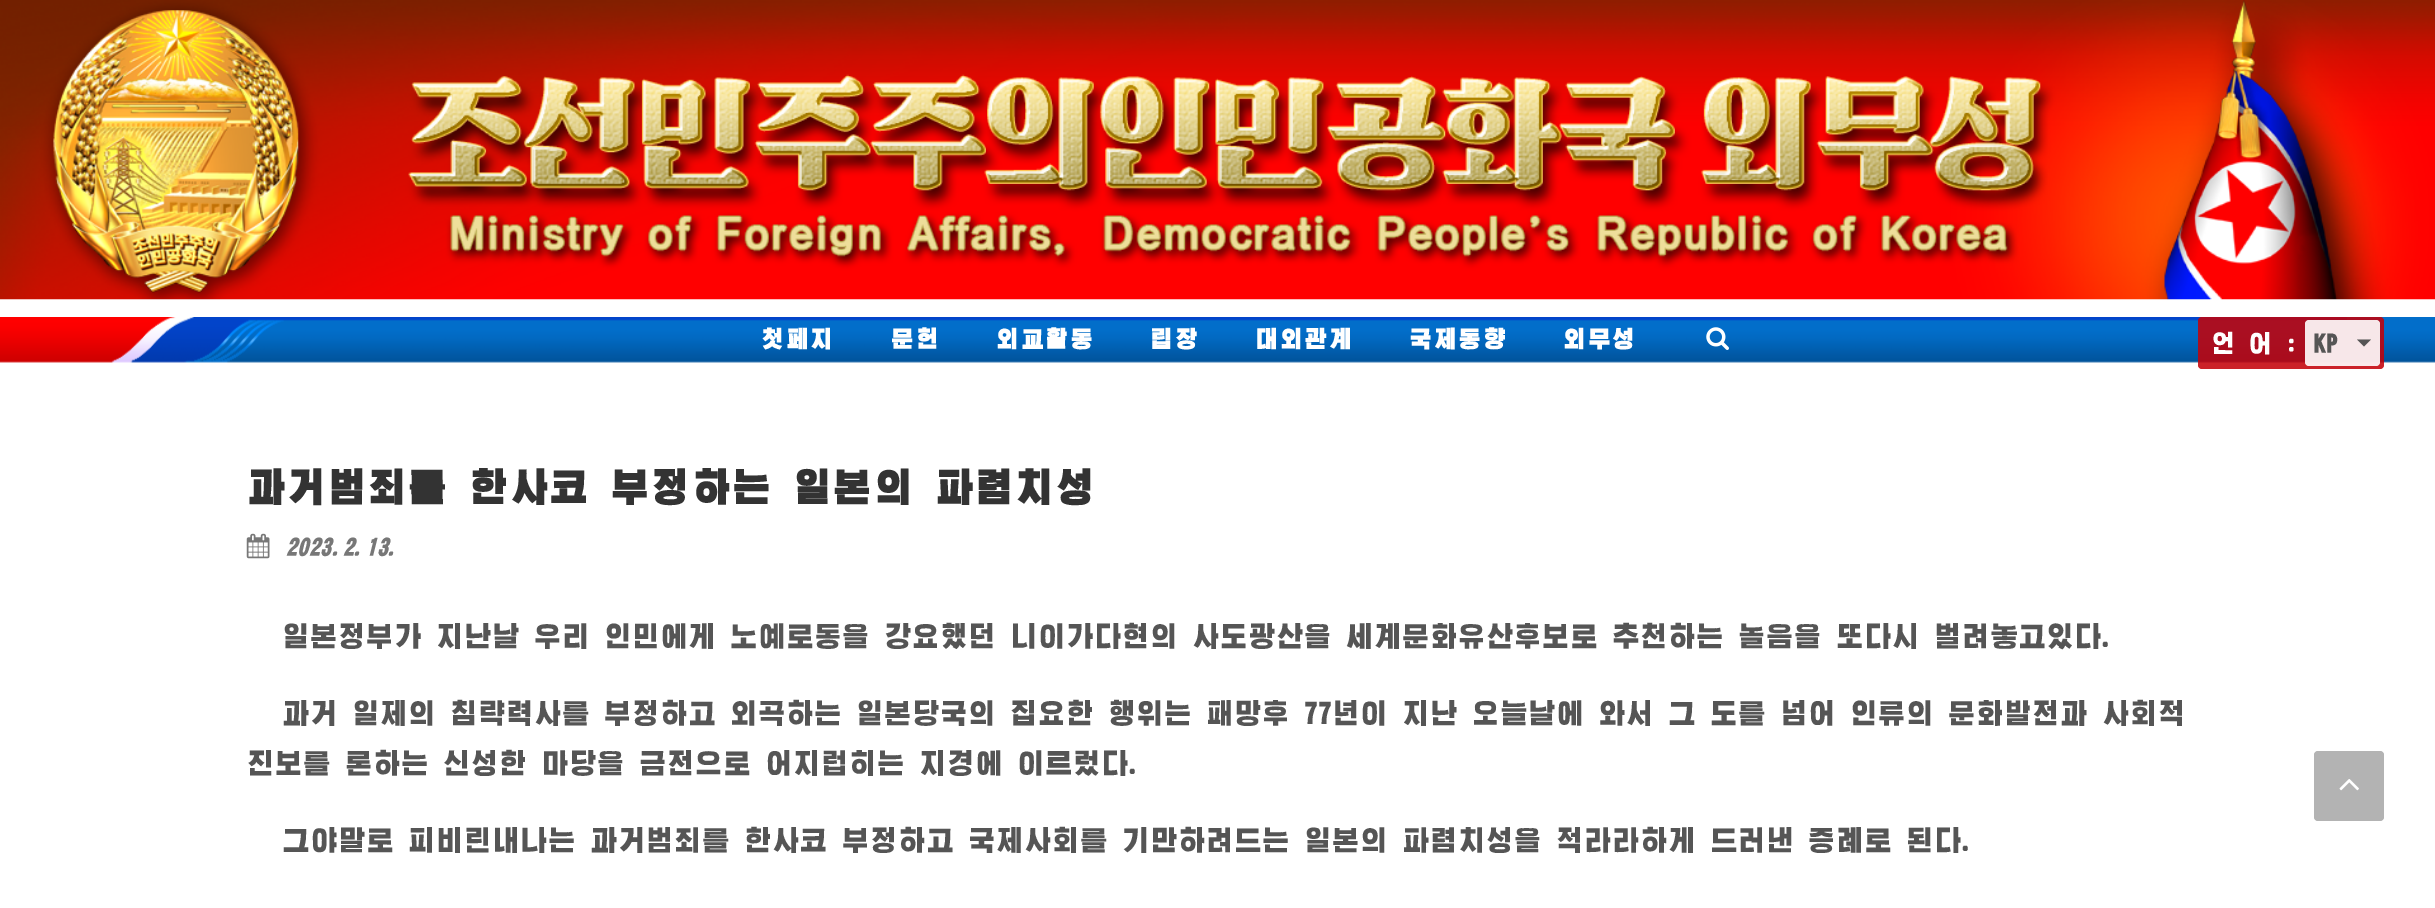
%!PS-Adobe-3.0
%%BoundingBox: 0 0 2435 908
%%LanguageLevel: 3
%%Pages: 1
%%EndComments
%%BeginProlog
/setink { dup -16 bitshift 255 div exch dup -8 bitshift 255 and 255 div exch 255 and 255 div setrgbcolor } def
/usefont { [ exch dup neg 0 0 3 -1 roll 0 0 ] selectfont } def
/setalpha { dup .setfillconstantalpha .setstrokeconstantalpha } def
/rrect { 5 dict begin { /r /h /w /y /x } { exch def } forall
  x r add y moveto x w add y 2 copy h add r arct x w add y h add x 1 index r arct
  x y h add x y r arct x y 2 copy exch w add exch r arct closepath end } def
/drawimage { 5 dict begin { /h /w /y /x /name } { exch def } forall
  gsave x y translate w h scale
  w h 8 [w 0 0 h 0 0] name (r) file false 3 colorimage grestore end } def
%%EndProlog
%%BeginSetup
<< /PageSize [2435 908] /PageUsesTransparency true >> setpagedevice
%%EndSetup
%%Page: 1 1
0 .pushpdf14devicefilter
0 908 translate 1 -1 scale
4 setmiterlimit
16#FFFFFF setink
0 0 2435 908 rectfill
(img1.raw) 0 317 2435 46 drawimage
/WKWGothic-Bold 22.75 usefont
761 347 moveto 1.75 0 (첫페지) ashow
891 347 moveto 1.75 0 (문헌) ashow
996 347 moveto 1.75 0 (외교활동) ashow
1150 347 moveto 1.75 0 (립장) ashow
1255 347 moveto 1.75 0 (대외관계) ashow
1409 347 moveto 1.75 0 (국제동향) ashow
1563 347 moveto 1.75 0 (외무성) ashow
(img2.raw) 1706 327 23 23 drawimage
(img3.raw) 0 0 2435 300 drawimage
0.87 setalpha
16#C30109 setink
2198 317 186 52 4 rrect fill
/WKWGothic-Regular 24.5 usefont
1 setalpha
16#FFFFFF setink
2211 352 moveto (언 어 :) show
0.9 setalpha
2305 320 75 46 4 rrect fill
1 setalpha
16#555555 setink
2314 352 moveto (KP) show
2357 339.5 moveto 2371 339.5 lineto 2364 346.5 lineto closepath fill
/WKWGothic-Bold 38.5 usefont
16#333333 setink
247 501 moveto 1.75 0 (과거범죄를 한사코 부정하는 일본의 파렴치성) ashow
(img4.raw) 246 533 24 26 drawimage
/WKWGothic-Italic 22.75 usefont
16#777777 setink
286 555 moveto (2023.2.13.) show
/WKWGothic-Regular 28 usefont
16#555555 setink
[
    [(일본정부가 지난날 우리 인민에게 노예로동을 강요했던 니이가다현의 사도광산을 세계문화유산후보로 추천하는 놀음을 또다시 벌려놓고있다.) 282 646]
    [(과거 일제의 침략력사를 부정하고 외곡하는 일본당국의 집요한 행위는 패망후 77년이 지난 오늘날에 와서 그 도를 넘어 인류의 문화발전과 사회적) 282 723]
    [(진보를 론하는 신성한 마당을 금전으로 어지럽히는 지경에 이르렀다.) 247 773]
    [(그야말로 피비린내나는 과거범죄를 한사코 부정하고 국제사회를 기만하려드는 일본의 파렴치성을 적라라하게 드러낸 증례로 된다.) 282 850]
] { aload pop moveto show } forall
16#B3B3B3 setink
2314 751 70 70 4 rrect fill
(img5.raw) 2339 779 20 12 drawimage
.poppdf14devicefilter showpage
%%EOF
